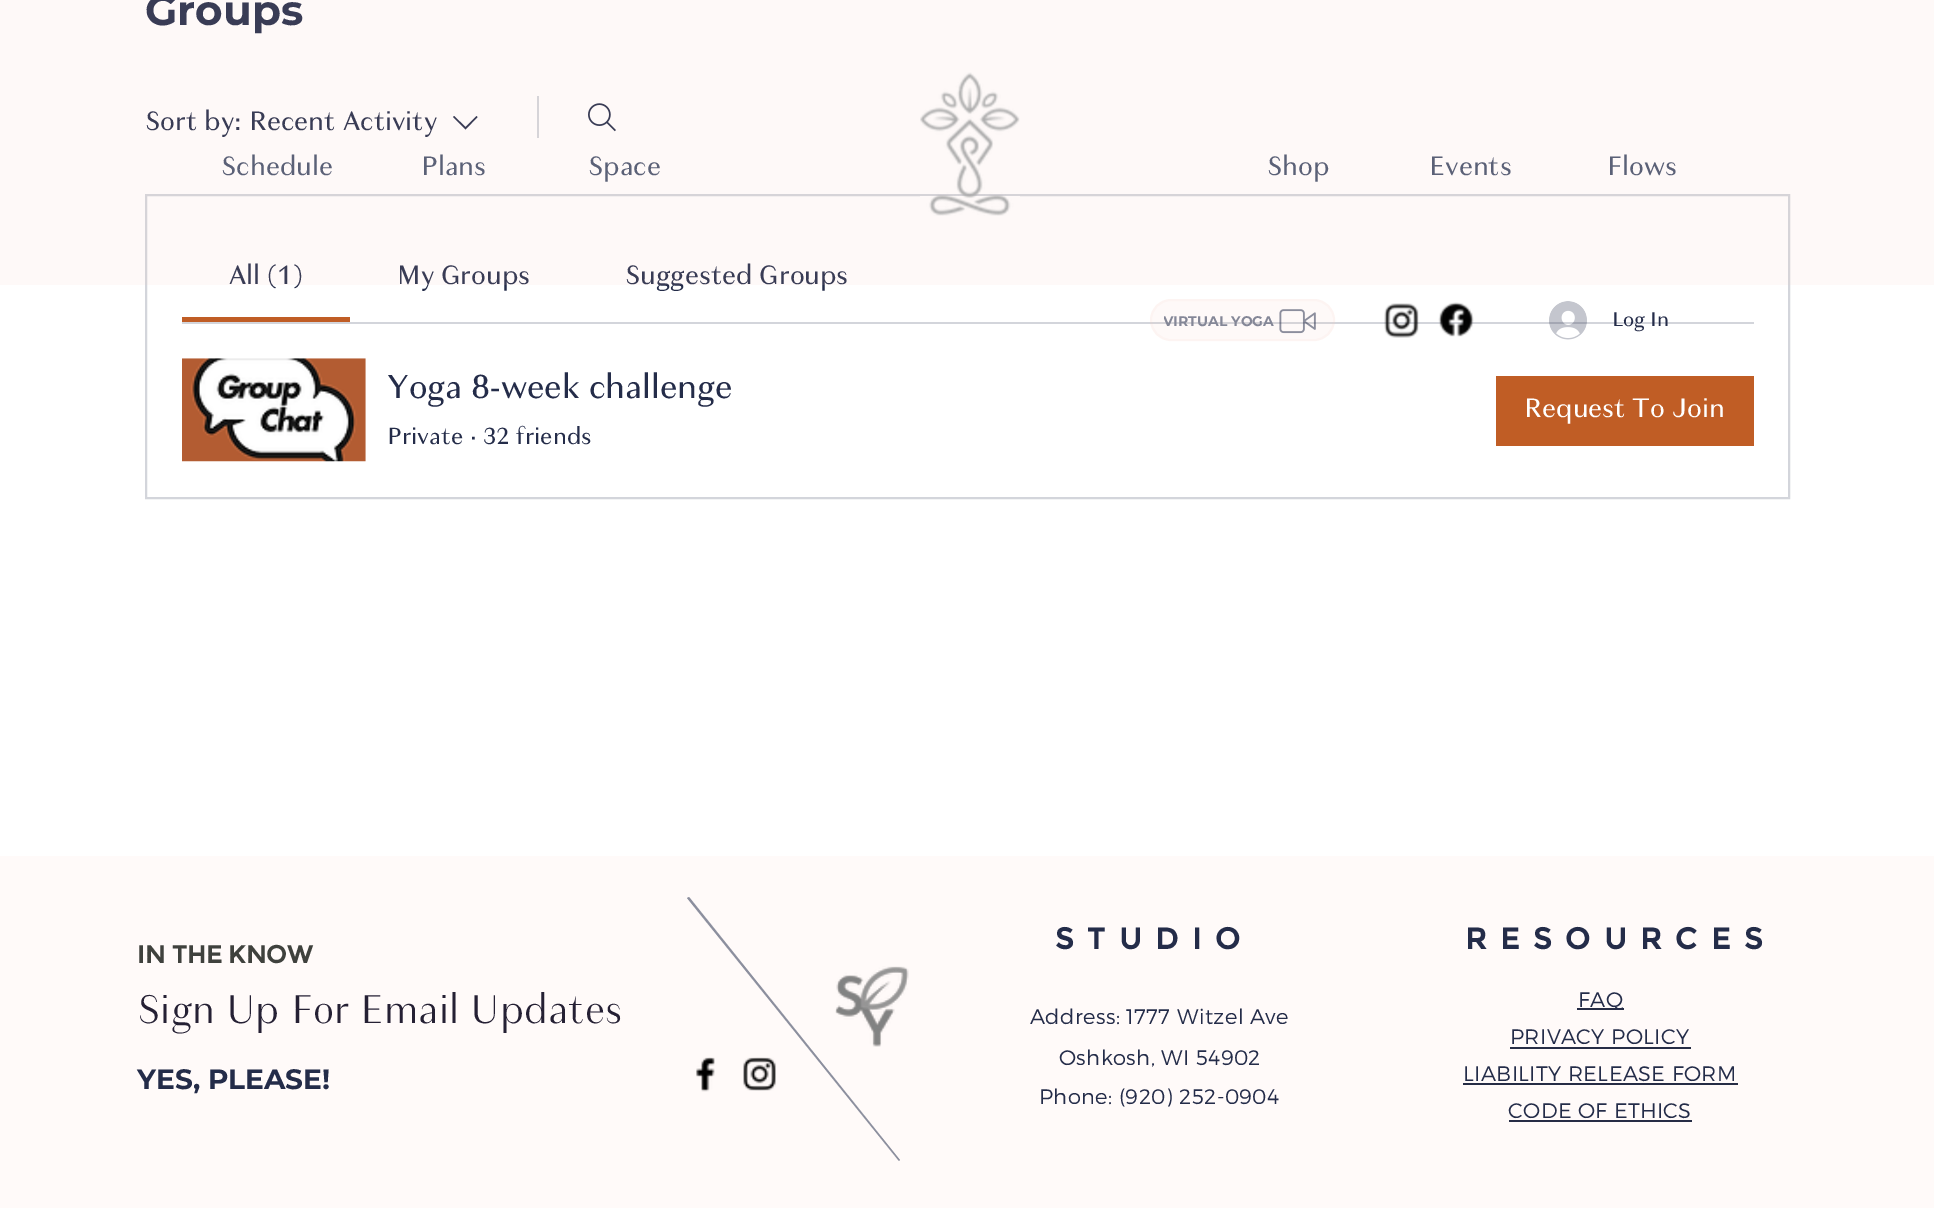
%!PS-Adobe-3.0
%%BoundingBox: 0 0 1934 1208
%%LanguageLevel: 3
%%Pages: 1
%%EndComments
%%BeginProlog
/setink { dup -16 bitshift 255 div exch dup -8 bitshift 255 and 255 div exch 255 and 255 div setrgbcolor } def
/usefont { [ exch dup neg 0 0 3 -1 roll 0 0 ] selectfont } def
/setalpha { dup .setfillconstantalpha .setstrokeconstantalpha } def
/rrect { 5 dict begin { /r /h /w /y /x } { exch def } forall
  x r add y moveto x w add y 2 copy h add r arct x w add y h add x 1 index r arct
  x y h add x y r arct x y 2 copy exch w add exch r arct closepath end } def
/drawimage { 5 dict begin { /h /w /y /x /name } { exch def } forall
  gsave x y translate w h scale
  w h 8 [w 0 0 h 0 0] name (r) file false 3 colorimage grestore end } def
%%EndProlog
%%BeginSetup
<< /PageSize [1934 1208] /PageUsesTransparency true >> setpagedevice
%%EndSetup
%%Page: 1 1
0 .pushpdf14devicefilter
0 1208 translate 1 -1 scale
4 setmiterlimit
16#FFFFFF setink
0 0 1934 1208 rectfill
/Montserrat-Bold 42 usefont
16#242C49 setink
145 25 moveto (Groups) show
/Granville-Regular 28 usefont
145 130 moveto (Sort by: Recent Activity) show
476.5 116 moveto 477.5 117 lineto 465.5 129.5 lineto 453 117 lineto 454 116 lineto 465.5 127 lineto closepath eofill
16#D3D5DB setink
537 96 2 42 rectfill
(img1.raw) 588 103 28 29 drawimage
2 setlinewidth
146 195 1643 303 rectstroke
182 322 1572 2 rectfill
16#C05D25 setink
182 317 168 5 rectfill
16#242C49 setink
[
    [(All \(1\)) 229 284]
    [(My Groups) 397 284]
    [(Suggested Groups) 625 284]
] { aload pop moveto show } forall
(img2.raw) 182 358 184 104 drawimage
/Granville-Regular 35 usefont
387 398 moveto (Yoga 8-week challenge) show
/Granville-Regular 24.5 usefont
[
    [(Private) 387 444]
    [(·) 470 444]
    [(32 friends) 483 444]
] { aload pop moveto show } forall
16#C05D25 setink
1496 376 258 70 rectfill
/Granville-Regular 28 usefont
16#FFFFFF setink
1524 417 moveto (Request To Join) show
0.1 setalpha
16#F3C7BD setink
0 0 1934 285 rectfill
1 setalpha
16#5B6177 setink
[
    [(Schedule) 221 175]
    [(Plans) 421 175]
    [(Space) 588 175]
] { aload pop moveto show } forall
(img3.raw) 920 72 100 144 drawimage
[
    [(Shop) 1267 175]
    [(Events) 1429 175]
    [(Flows) 1607 175]
] { aload pop moveto show } forall
0.1 setalpha
16#F3C7BD setink
1150 299 185 42 21 rrect fill
1151 300 183 40 20 rrect stroke
gsave
1164 312 110 17 rectclip
/Montserrat-Bold 14 usefont
1 setalpha
16#848797 setink
1163 326 moveto (VIRTUAL YOGA) show
grestore
1 setalpha
(img4.raw) 1279 309 37 25 drawimage
(img5.raw) 1384 303 35 35 drawimage
(img6.raw) 1438 302 36 35 drawimage
(img7.raw) 1549 301 38 39 drawimage
/Granville-Regular 21 usefont
16#242C49 setink
1612 326 moveto (Log In) show
16#FFFAF9 setink
0 856 1934 352 rectfill
(img8.raw) 835 966 74 81 drawimage
16#8C8F9E setink
689 897 moveto 900 1160 lineto 899 1161 lineto 687 898 lineto closepath fill
/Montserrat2-Bold 29.75 usefont
16#242C49 setink
1055 949 moveto 13.5 0 (STUDIO) ashow
1465 949 moveto 13.5 0 (RESOURCES) ashow
/Montserrat2-Bold 24.5 usefont
16#3F413D setink
137 963 moveto (IN THE KNOW) show
/Granville-Light 42 usefont
16#252034 setink
137 1023 moveto (Sign Up For Email Updates) show
(img9.raw) 696 1057 19 35 drawimage
(img10.raw) 743 1057 33 34 drawimage
/Montserrat-Light 21 usefont
16#242C49 setink
1030 1024 moveto 0.4 0 (Address: 1777) ashow
1177 1024 moveto 0.4 0 (Witzel Ave) ashow
1059 1065 moveto 0.4 0 (Oshkosh, WI 54902) ashow
1039 1104 moveto 0.4 0 (Phone: \(920\) 252-0904) ashow
16#262C45 setink
1577 1008 47 2 rectfill
16#242C49 setink
1578 1007 moveto 0.4 0 (FAQ) ashow
1510 1044 moveto 0.4 0 (PRIVACY POLICY) ashow
16#262C45 setink
1510 1047 181 2 rectfill
16#242C49 setink
1463 1081 moveto 0.4 0 (LIABILITY RELEASE FORM) ashow
16#262C45 setink
1463 1083 275 2 rectfill
16#242C49 setink
1508 1118 moveto 0.4 0 (CODE OF ETHICS) ashow
16#262C45 setink
1509 1120 183 2 rectfill
/Montserrat-Bold 28 usefont
16#242C49 setink
137 1089 moveto (YES, PLEASE!) show
.poppdf14devicefilter showpage
%%EOF
